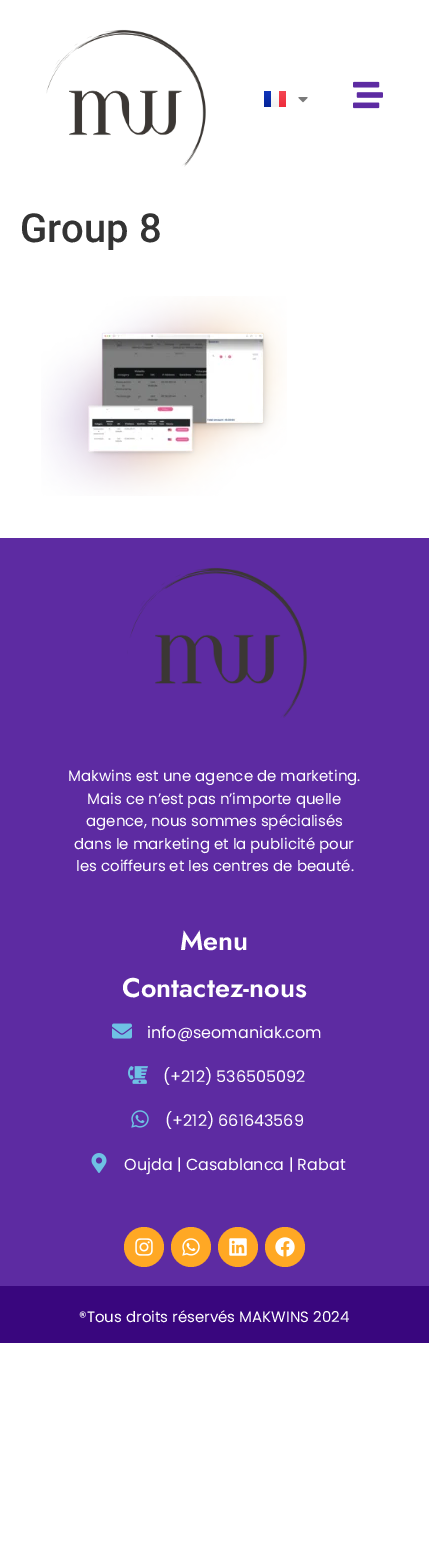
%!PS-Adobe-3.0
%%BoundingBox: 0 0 429 1556
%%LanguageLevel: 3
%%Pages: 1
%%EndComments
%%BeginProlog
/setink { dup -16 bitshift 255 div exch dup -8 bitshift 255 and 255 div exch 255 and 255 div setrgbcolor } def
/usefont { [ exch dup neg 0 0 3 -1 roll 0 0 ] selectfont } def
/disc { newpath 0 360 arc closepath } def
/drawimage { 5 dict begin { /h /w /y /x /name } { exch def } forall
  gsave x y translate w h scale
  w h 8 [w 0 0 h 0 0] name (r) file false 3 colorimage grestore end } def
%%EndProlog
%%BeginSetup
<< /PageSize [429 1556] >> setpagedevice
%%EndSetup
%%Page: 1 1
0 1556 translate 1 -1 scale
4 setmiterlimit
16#FFFFFF setink
0 0 429 1556 rectfill
(img1.raw) 46 29 160 138 drawimage
gsave 264 91 moveto 271 91 lineto 271 107 lineto 264 107 lineto closepath clip newpath
<< /ShadingType 2 /ColorSpace /DeviceRGB /Coords [267 91 267 108] /Extend [true true] /Function << /FunctionType 2 /Domain [0 1] /C0 [0.063 0.208 0.733] /C1 [0.016 0.137 0.588] /N 1 >> >> shfill grestore
gsave 271 91 moveto 279 91 lineto 279 107 lineto 271 107 lineto closepath clip newpath
<< /ShadingType 2 /ColorSpace /DeviceRGB /Coords [275 91 275 108] /Extend [true true] /Function << /FunctionType 2 /Domain [0 1] /C0 [1 1 1] /C1 [0.941 0.941 0.941] /N 1 >> >> shfill grestore
gsave 279 91 moveto 286 91 lineto 286 107 lineto 279 107 lineto closepath clip newpath
<< /ShadingType 2 /ColorSpace /DeviceRGB /Coords [281 91 281 108] /Extend [true true] /Function << /FunctionType 2 /Domain [0 1] /C0 [0.957 0.275 0.325] /C1 [0.933 0.165 0.224] /N 1 >> >> shfill grestore
(img2.raw) 298 97 10 6 drawimage
(img3.raw) 353 81 30 28 drawimage
/Roboto-Medium 40 usefont
16#333333 setink
20 242 moveto (Group 8) show
(img4.raw) 41 296 246 200 drawimage
16#5D2BA2 setink
0 538 429 748 rectfill
(img5.raw) 127 567 180 151 drawimage
/Poppins-Regular 15 usefont
16#FFFFFF setink
[
    [(Makwins est une agence de marketing.) 68 781]
    [(Mais ce n’est pas n’importe quelle) 87 804]
    [(agence, nous sommes spécialisés) 86 826]
    [(dans le marketing et la publicité pour) 74 849]
    [(les coiffeurs et les centres de beauté.) 76 871]
] { aload pop moveto show } forall
/Jost-SemiBold 27 usefont
180 950 moveto (Menu) show
122 997 moveto (Contactez-nous) show
(img6.raw) 112 1023 20 16 drawimage
/Poppins-Regular 16 usefont
147 1038 moveto (info@seomaniak.com) show
(img7.raw) 128 1066 20 18 drawimage
163 1082 moveto (\(+212\) 536505092) show
(img8.raw) 131 1110 18 18 drawimage
165 1126 moveto (\(+212\) 661643569) show
(img9.raw) 91 1153 16 20 drawimage
124 1170 moveto (Oujda | Casablanca | Rabat) show
16#FFA824 setink
144 1247 20 disc fill
(img10.raw) 135 1238 18 18 drawimage
191 1247 20 disc fill
(img11.raw) 182 1238 18 18 drawimage
238 1247 20 disc fill
(img12.raw) 229 1238 18 18 drawimage
285 1247 20 disc fill
(img13.raw) 275 1237 20 20 drawimage
16#39067E setink
0 1286 429 57 rectfill
/Poppins-Regular 15 usefont
16#FFFFFF setink
79 1322 moveto (®Tous droits réservés MAKWINS 2024) show
showpage
%%EOF
